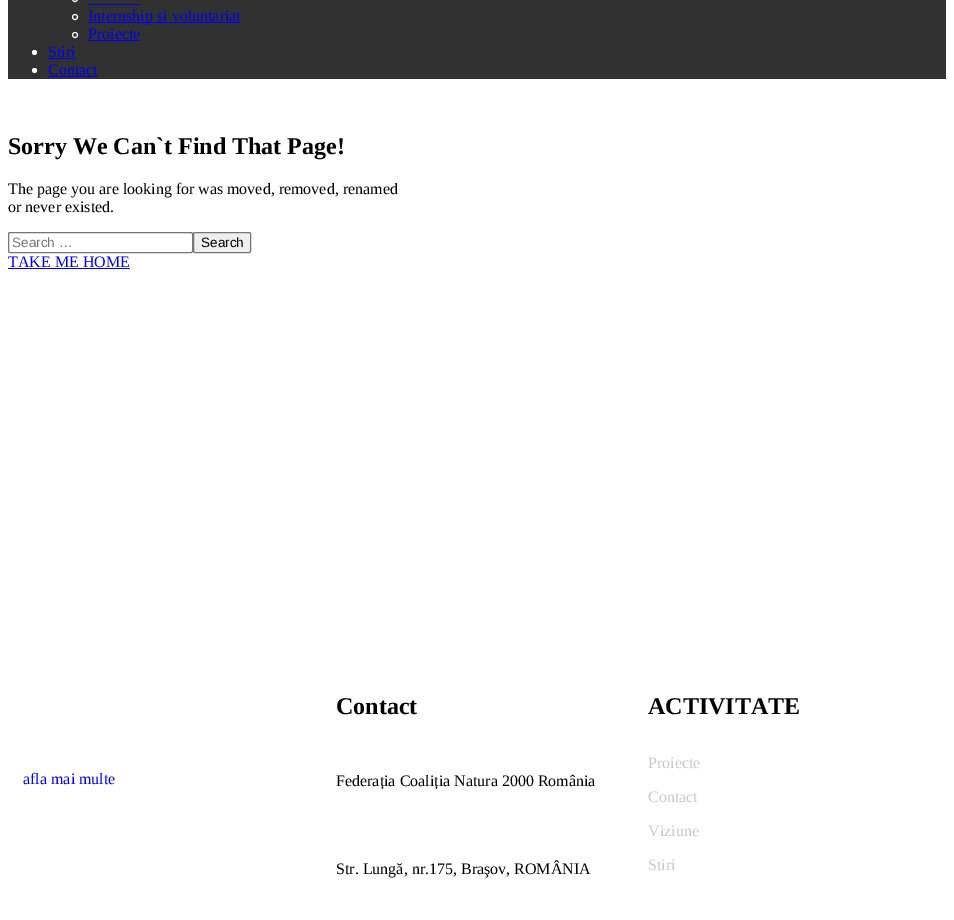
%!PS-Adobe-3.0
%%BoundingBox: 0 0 954 920
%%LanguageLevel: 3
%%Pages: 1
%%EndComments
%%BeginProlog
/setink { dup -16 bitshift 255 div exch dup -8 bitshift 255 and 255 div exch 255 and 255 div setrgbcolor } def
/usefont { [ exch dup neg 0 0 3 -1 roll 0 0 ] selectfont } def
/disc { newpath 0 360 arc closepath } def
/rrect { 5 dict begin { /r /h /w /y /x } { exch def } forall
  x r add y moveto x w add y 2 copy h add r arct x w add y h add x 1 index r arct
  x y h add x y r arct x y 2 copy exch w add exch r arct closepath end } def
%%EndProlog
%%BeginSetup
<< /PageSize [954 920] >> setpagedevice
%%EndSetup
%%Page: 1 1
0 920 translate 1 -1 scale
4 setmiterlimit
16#FFFFFF setink
0 0 954 920 rectfill
16#313131 setink
8 0 938 79 rectfill
16#FFFFFF setink
75 -1 2.5 disc stroke
16#0000EE setink
88 4 52 1 rectfill
16#FFFFFF setink
75 17 2.5 disc stroke
16#0000EE setink
88 22 153 1 rectfill
/LiberationSerif-Regular 16 usefont
88 21 moveto (Internship și voluntariat) show
16#FFFFFF setink
75 35 2.5 disc stroke
16#0000EE setink
88 39 moveto (Proiecte) show
88 40 52 1 rectfill
16#FFFFFF setink
34.5 52.5 2.5 disc fill
16#0000EE setink
48 57 moveto (Stiri) show
48 58 28 1 rectfill
16#FFFFFF setink
34.5 70.5 2.5 disc fill
16#0000EE setink
48 75 moveto (Contact) show
48 76 50 1 rectfill
/LiberationSerif-Bold 24 usefont
16#000000 setink
8 154 moveto (Sorry We Can`t Find That Page!) show
/LiberationSerif-Regular 16 usefont
8 194 moveto (The page you are looking for was moved, removed, renamed) show
8 212 moveto (or never existed.) show
16#767676 setink
8.5 232.5 184 20 1.5 rrect stroke
/LiberationSans-Regular 13.5 usefont
16#757575 setink
12 247 moveto (Search …) show
16#EFEFEF setink
193.5 232.5 57 20 1.5 rrect gsave fill grestore
16#767676 setink
stroke
16#000000 setink
201 247 moveto (Search) show
/LiberationSerif-Regular 16 usefont
16#0000EE setink
8 267 moveto (TAKE ME HOME) show
8 268 122 1 rectfill
23 784 moveto (afla mai multe) show
/LiberationSerif-Bold 24 usefont
16#000000 setink
336 714 moveto (Contact) show
/LiberationSerif-Regular 16 usefont
336 786 moveto (Federația Coaliția Natura 2000 România) show
336 874 moveto (Str. Lungă, nr.175, Braşov, ROMÂNIA) show
/LiberationSerif-Bold 24 usefont
648 714 moveto (ACTIVITATE) show
/LiberationSerif-Regular 16 usefont
16#C9C9C9 setink
[
    [(Proiecte) 648 768]
    [(Contact) 648 802]
    [(Viziune) 648 836]
    [(Stiri) 648 870]
] { aload pop moveto show } forall
showpage
%%EOF
